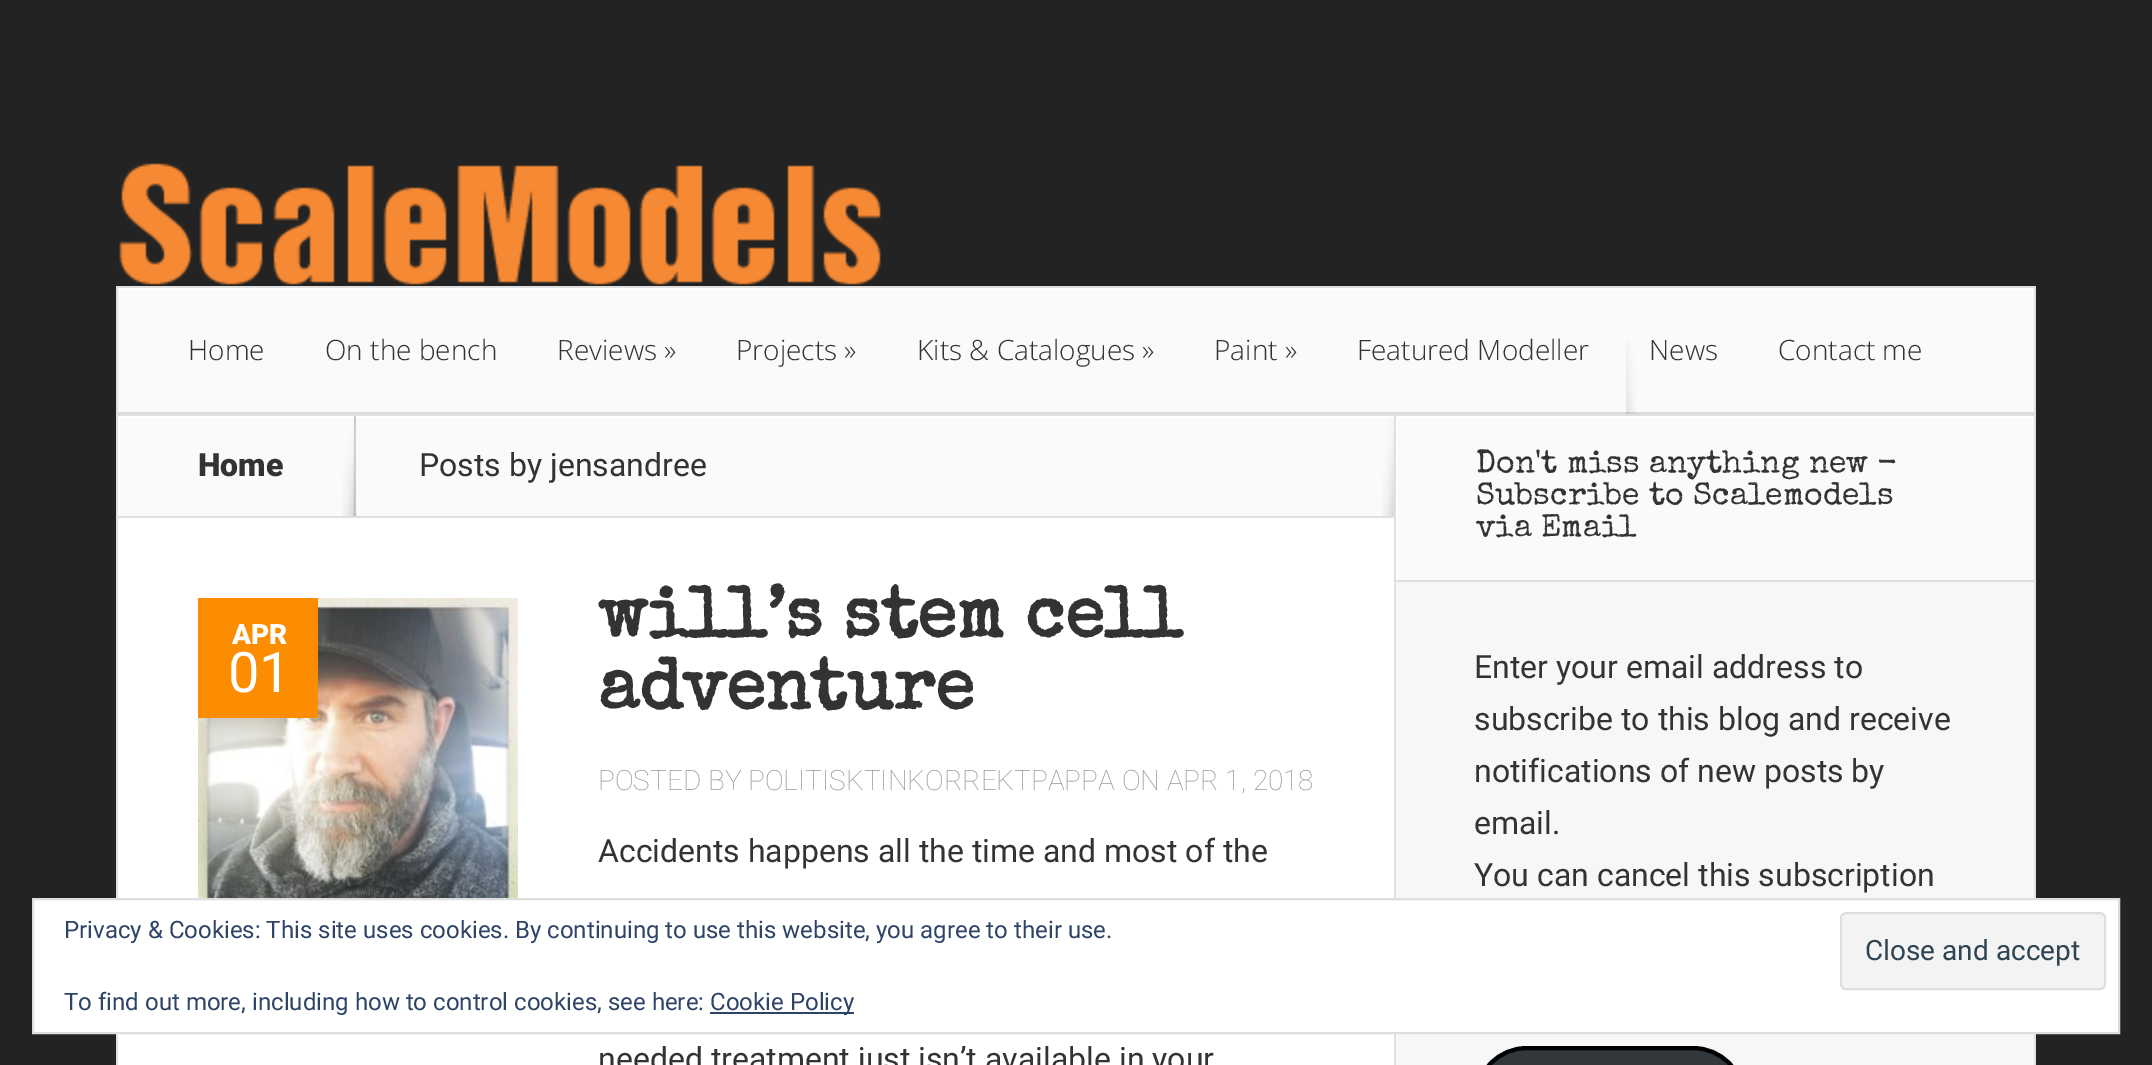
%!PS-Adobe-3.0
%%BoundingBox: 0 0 2152 1065
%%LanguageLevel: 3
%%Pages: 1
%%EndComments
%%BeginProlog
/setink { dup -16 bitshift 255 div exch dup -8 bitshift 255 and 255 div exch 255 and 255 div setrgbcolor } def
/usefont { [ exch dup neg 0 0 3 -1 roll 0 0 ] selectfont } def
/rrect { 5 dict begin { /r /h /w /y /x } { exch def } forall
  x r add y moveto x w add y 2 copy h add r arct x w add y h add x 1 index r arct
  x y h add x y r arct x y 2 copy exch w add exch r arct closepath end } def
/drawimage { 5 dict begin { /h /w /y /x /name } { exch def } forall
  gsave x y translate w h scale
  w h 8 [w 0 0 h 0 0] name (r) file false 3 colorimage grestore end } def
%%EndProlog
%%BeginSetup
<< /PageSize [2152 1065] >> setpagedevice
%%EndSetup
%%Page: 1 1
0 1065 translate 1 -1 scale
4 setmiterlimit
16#232323 setink
0 0 2152 1065 rectfill
(img1.raw) 119 163 762 122 drawimage
[
    [118 290 1916 122 16#FAFAFA]
    [118 412 1916 2 16#DADADA]
    [118 288 1916 2 16#FFFFFF]
    [116 286 1920 2 16#E0E0E0]
    [2034 286 2 779 16#E0E0E0]
    [116 286 2 779 16#E0E0E0]
] { aload pop setink rectfill } forall
/OpenSans-Light 28 usefont
16#333333 setink
[
    [(Home) 188 360]
    [(On the bench) 325 360]
    [(Reviews ») 557 360]
    [(Projects ») 736 360]
    [(Kits & Catalogues ») 917 360]
    [(Paint ») 1214 360]
    [(Featured Modeller) 1357 360]
    [(News) 1649 360]
    [(Contact me) 1778 360]
] { aload pop moveto show } forall
(img2.raw) 1626 341 10 73 drawimage
16#FFFFFF setink
118 518 1276 547 rectfill
16#FAFAFA setink
120 418 1274 98 rectfill
gsave
118 416 1276 100 rectclip
16#FFFFFF setink
-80 218 moveto 1592 218 lineto 1592 714 lineto -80 714 lineto closepath 120 418 moveto 1396 418 lineto 1396 518 lineto 120 518 lineto closepath eofill
grestore
16#E0E0E0 setink
118 414 1916 2 rectfill
118 516 1276 2 rectfill
/Roboto-Black 32 usefont
16#333333 setink
198 476 moveto (Home) show
16#CAC9C9 setink
354 416 2 100 rectfill
(img3.raw) 342 423 16 93 drawimage
/Roboto-Regular 32 usefont
16#333333 setink
419 476 moveto (Posts by jensandree) show
(img4.raw) 1382 417 12 99 drawimage
(img5.raw) 198 598 320 300 drawimage
16#FC8D00 setink
198 598 120 120 rectfill
/Roboto-Black 28 usefont
16#FFFFFF setink
232 644 moveto (APR) show
/Roboto-Regular 56 usefont
228 692 moveto (01) show
/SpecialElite-Bold 72 usefont
16#333333 setink
598 636 moveto (will’s stem cell) show
598 708 moveto (adventure) show
/Roboto-Thin 28 usefont
16#969696 setink
598 790 moveto (POSTED BY POLITISKTINKORREKTPAPPA ON APR 1, 2018) show
/Roboto-Regular 32 usefont
16#333333 setink
598 862 moveto (Accidents happens all the time and most of the) show
598 1070 moveto (needed treatment just isn’t available in your) show
16#F7F7F7 setink
1396 582 638 483 rectfill
16#FAFAFA setink
1398 418 636 162 rectfill
gsave
1396 416 638 164 rectclip
16#FFFFFF setink
1198 218 moveto 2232 218 lineto 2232 778 lineto 1198 778 lineto closepath 1398 418 moveto 2036 418 lineto 2036 582 lineto 1398 582 lineto closepath eofill
grestore
16#E0E0E0 setink
1394 580 640 2 rectfill
1394 414 2 168 rectfill
/SpecialElite-Regular 32 usefont
16#333333 setink
[
    [(Don't miss anything new -) 1476 472]
    [(Subscribe to Scalemodels) 1476 504]
    [(via Email) 1476 536]
] { aload pop moveto show } forall
/Roboto-Regular 32 usefont
[
    [(Enter your email address to) 1474 678]
    [(subscribe to this blog and receive) 1474 730]
    [(notifications of new posts by) 1474 782]
    [(email.) 1474 834]
    [(You can cancel this subscription) 1474 886]
] { aload pop moveto show } forall
16#32373C setink
1476 1048 268 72 51 rrect gsave fill grestore
16#000000 setink
4 setlinewidth
stroke
16#E0E0E0 setink
1394 582 2 483 rectfill
16#FFFFFF setink
33 899 moveto 2119 899 lineto 2119 1033 lineto 33 1033 lineto closepath gsave fill grestore
16#DEDEDE setink
2 setlinewidth
stroke
/Roboto-Regular 24 usefont
16#2E4467 setink
64 938 moveto (Privacy & Cookies: This site uses cookies. By continuing to use this website, you agree to their use.) show
16#F3F3F3 setink
1841 913 264 76 5 rrect gsave fill grestore
16#DEDEDE setink
stroke
/Roboto-Regular 28 usefont
16#2E4453 setink
1865 960 moveto (Close and accept) show
/Roboto-Regular 24 usefont
16#2E4467 setink
64 1010 moveto (To find out more, including how to control cookies, see here:) show
710 1012 144 2 rectfill
710 1010 moveto (Cookie Policy) show
showpage
%%EOF
